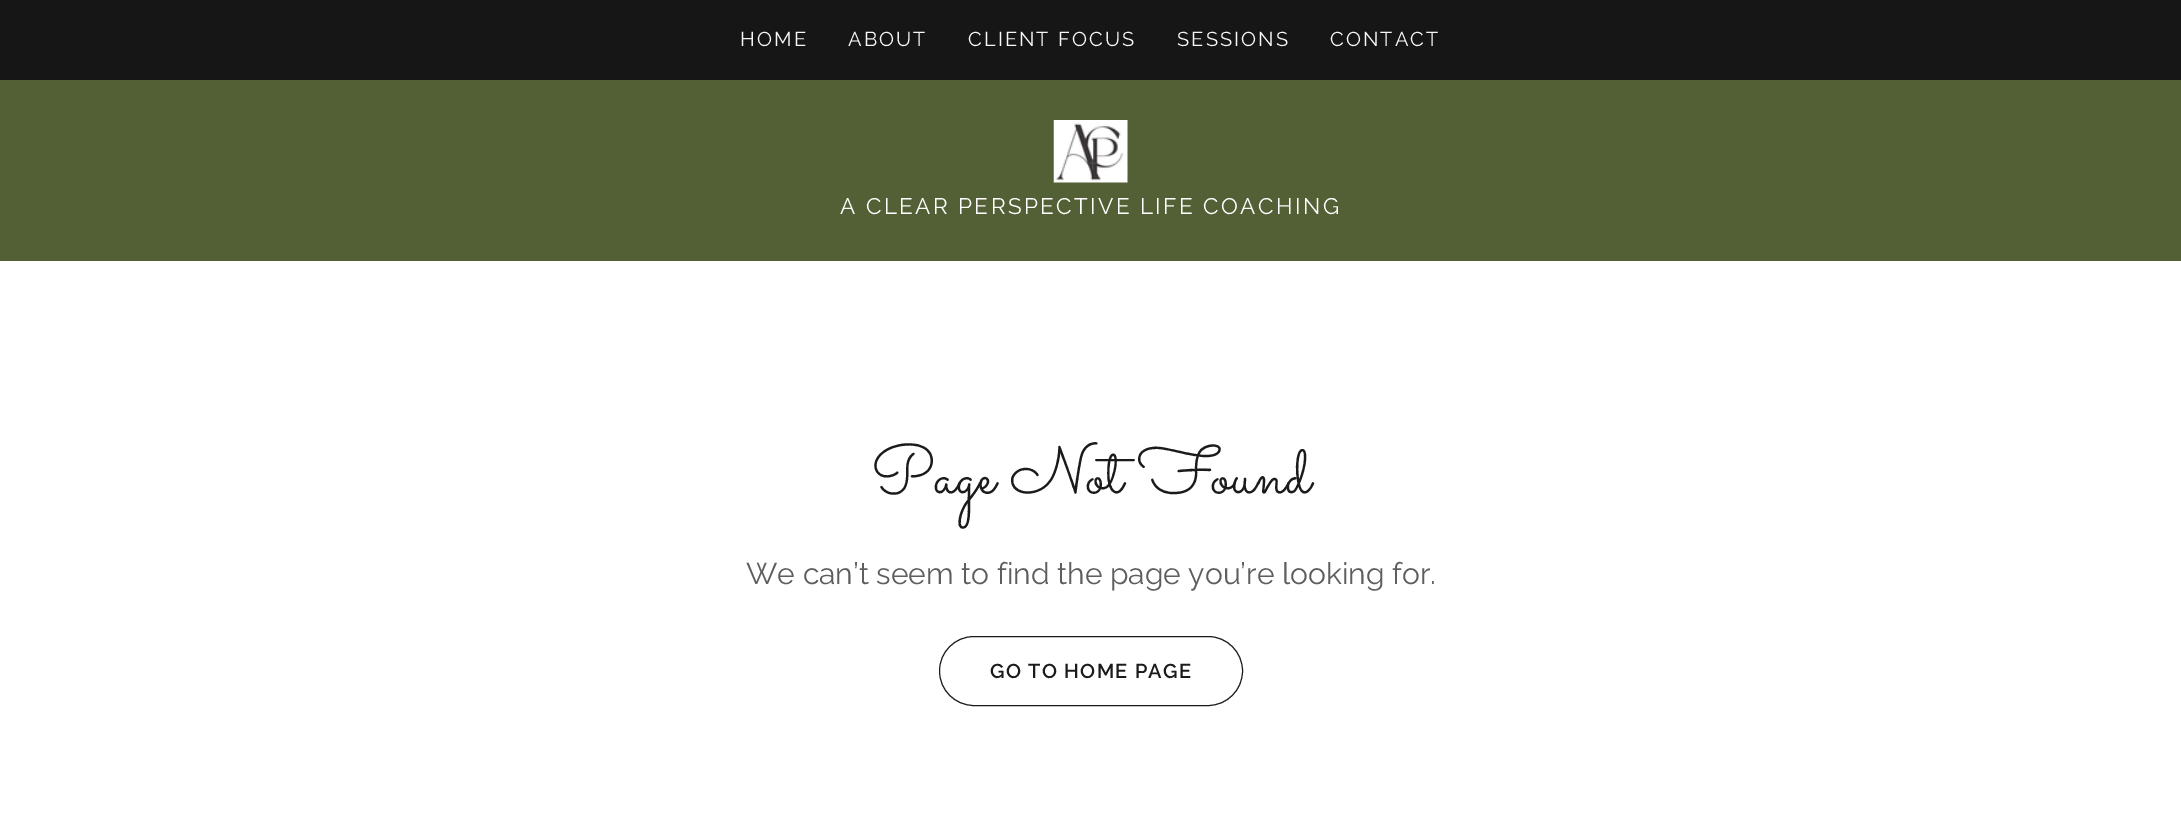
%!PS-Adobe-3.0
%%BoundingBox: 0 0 2181 837
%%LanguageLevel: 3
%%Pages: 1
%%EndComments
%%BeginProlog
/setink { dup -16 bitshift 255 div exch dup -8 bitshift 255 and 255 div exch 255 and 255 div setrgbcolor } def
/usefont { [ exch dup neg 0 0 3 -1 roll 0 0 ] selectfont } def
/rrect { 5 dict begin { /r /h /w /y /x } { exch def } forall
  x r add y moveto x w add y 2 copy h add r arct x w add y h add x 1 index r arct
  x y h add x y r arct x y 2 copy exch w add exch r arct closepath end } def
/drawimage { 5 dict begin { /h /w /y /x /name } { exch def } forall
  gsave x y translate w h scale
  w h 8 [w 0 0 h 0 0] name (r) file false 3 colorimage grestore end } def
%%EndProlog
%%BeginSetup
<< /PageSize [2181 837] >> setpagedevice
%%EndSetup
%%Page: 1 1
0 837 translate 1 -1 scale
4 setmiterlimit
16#535F34 setink
0 0 2181 837 rectfill
16#161616 setink
0 0 2181 80 rectfill
/Raleway-Regular 20 usefont
16#F7F7F7 setink
740 46 moveto 2.1 0 (HOME) ashow
848 46 moveto 2.1 0 (ABOUT) ashow
968 46 moveto 2.1 0 (CLIENT FOCUS) ashow
1177 46 moveto 2.1 0 (SESSIONS) ashow
1330 46 moveto 2.1 0 (CONTACT) ashow
(img1.raw) 1053 120 75 63 drawimage
/Raleway-Regular 22.5 usefont
16#FFFFFF setink
840 214 moveto 2.4 0 (A CLEAR PERSPECTIVE LIFE COACHING) ashow
0 261 2181 576 rectfill
/Sacramento-Regular 67.5 usefont
16#1B1B1B setink
871 493 moveto (Page Not Found) show
/Raleway-Regular 30 usefont
16#5E5E5E setink
746 584 moveto (We can’t seem to find the page you’re looking for.) show
16#1B1B1B setink
939.5 636.5 303 69 34.5 rrect stroke
/Raleway-SemiBold 20 usefont
990 678 moveto 1.25 0 (GO TO HOME PAGE) ashow
showpage
%%EOF
